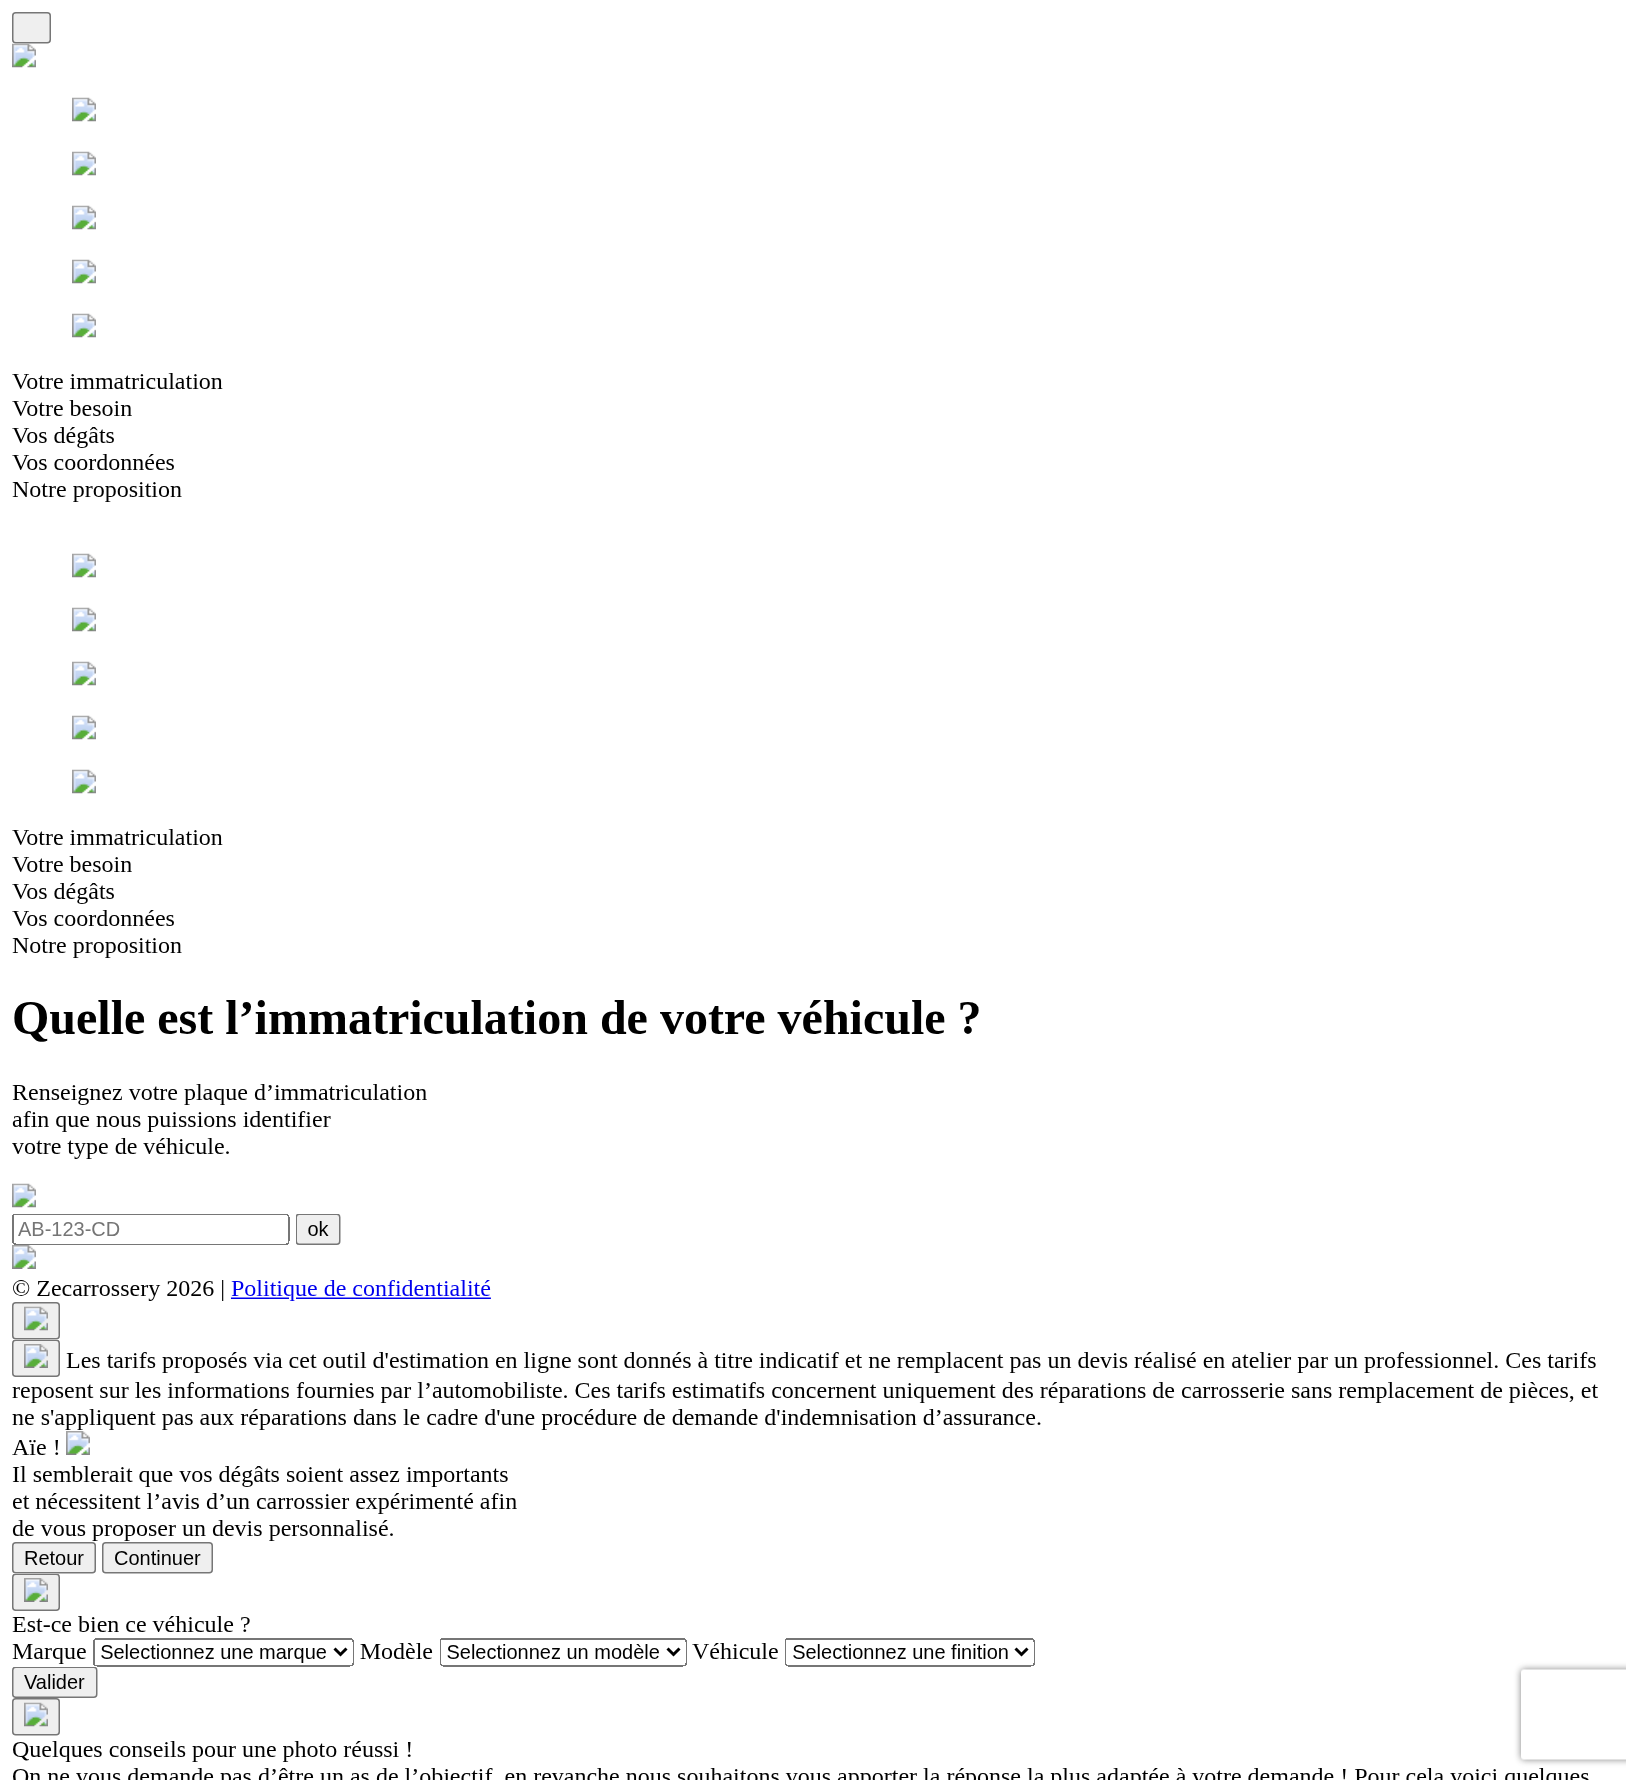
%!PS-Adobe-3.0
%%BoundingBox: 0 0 1626 1780
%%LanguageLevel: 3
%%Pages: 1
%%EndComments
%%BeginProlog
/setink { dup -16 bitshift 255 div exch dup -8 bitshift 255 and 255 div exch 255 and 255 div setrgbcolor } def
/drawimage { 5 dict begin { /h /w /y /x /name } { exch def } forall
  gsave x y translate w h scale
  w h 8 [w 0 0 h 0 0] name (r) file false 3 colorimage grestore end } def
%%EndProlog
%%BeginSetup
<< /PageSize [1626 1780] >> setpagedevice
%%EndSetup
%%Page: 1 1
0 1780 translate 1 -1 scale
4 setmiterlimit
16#FFFFFF setink
0 0 1626 1780 rectfill
(img1.raw) 12 12 1614 1768 drawimage
showpage
%%EOF
